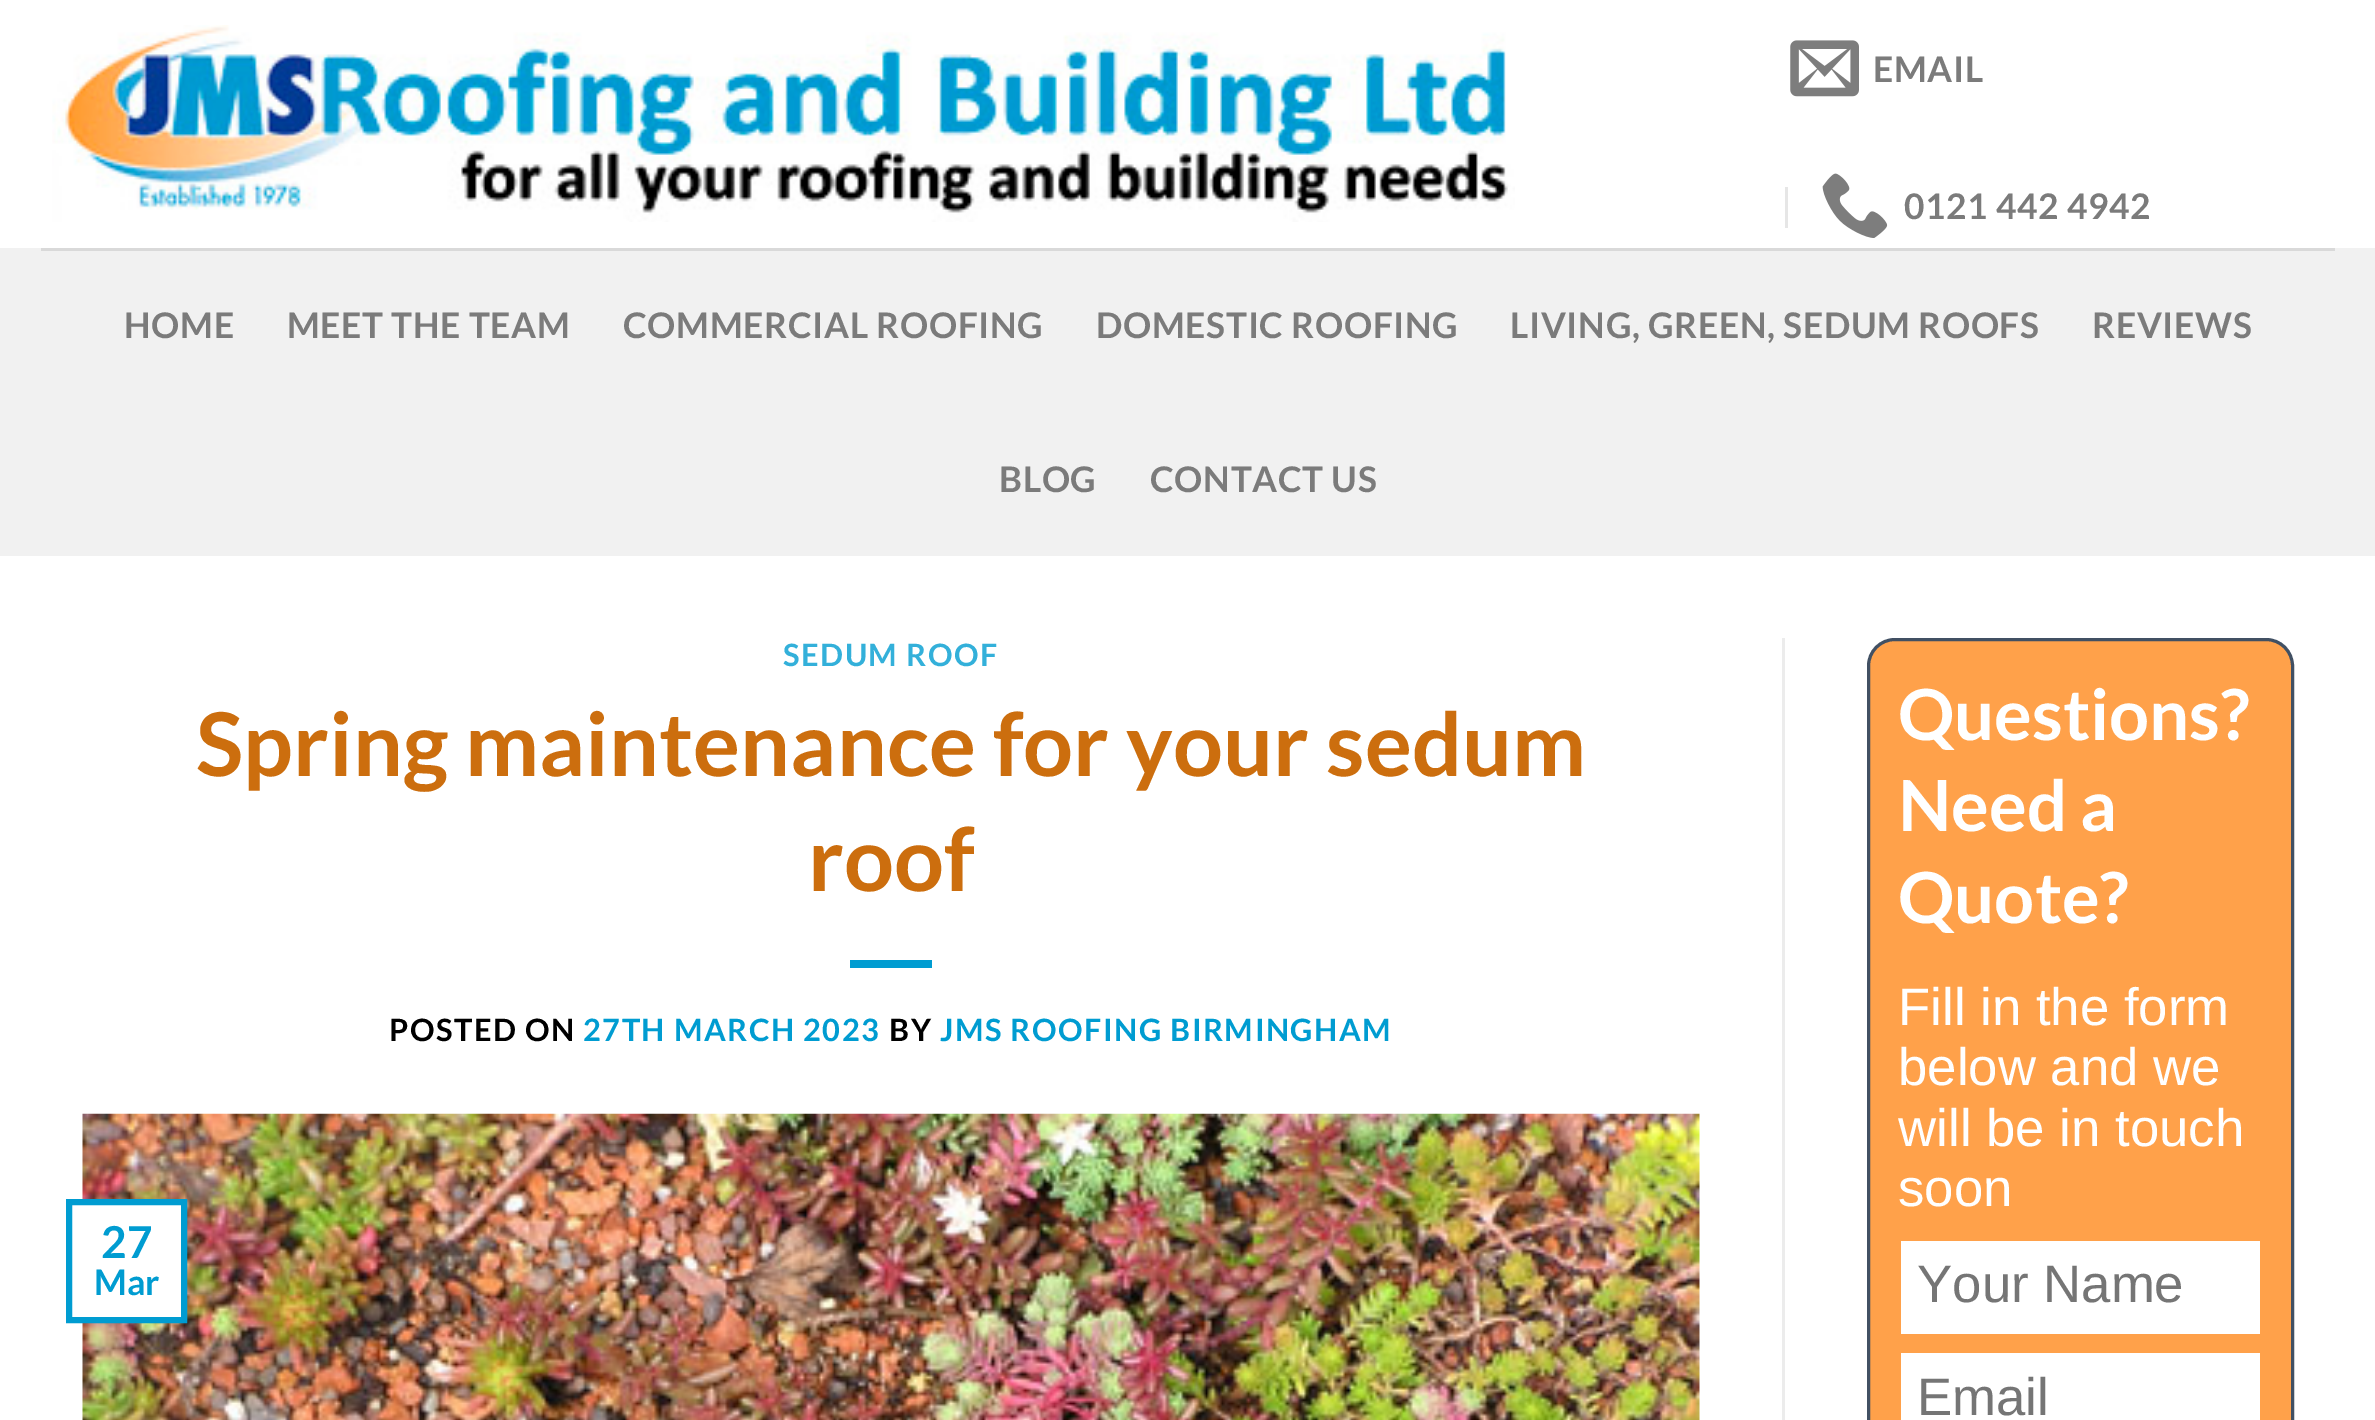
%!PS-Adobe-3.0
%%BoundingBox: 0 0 2375 1420
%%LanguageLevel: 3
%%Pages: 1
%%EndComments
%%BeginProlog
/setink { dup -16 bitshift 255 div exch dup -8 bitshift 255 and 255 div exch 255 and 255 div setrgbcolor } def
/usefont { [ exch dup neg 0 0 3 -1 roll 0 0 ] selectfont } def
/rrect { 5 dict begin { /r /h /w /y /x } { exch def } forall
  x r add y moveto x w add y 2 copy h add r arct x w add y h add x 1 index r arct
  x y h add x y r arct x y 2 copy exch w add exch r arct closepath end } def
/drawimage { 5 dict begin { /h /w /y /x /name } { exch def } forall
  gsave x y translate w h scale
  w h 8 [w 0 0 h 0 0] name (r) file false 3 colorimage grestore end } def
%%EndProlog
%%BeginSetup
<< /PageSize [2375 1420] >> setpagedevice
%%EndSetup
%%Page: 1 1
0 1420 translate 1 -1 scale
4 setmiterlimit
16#FFFFFF setink
0 0 2375 1420 rectfill
(img1.raw) 52 25 1463 197 drawimage
(img2.raw) 1790 40 69 57 drawimage
/Lato-Bold 35.25 usefont
16#7B7B7B setink
1873 82 moveto 0.7 0 (EMAIL) ashow
16#E6E6E6 setink
1785 187 3 41 rectfill
(img3.raw) 1822 173 66 65 drawimage
16#7B7B7B setink
1904 219 moveto 0.7 0 (0121 442 4942) ashow
16#F1F1F1 setink
0 248 2375 308 rectfill
16#D9D9D9 setink
41 248 2294 3 rectfill
16#7B7B7B setink
124 338 moveto 0.7 0 (HOME) ashow
287 338 moveto 0.7 0 (MEET THE TEAM) ashow
623 338 moveto 0.7 0 (COMMERCIAL ROOFING) ashow
1096 338 moveto 0.7 0 (DOMESTIC ROOFING) ashow
1510 338 moveto 0.7 0 (LIVING, GREEN, SEDUM ROOFS) ashow
2092 338 moveto 0.7 0 (REVIEWS) ashow
999 492 moveto 0.7 0 (BLOG) ashow
1150 492 moveto 0.7 0 (CONTACT US) ashow
/Lato-Bold 30.75 usefont
16#33B0DA setink
783 666 moveto 1.5 0 (SEDUM ROOF) ashow
/Lato-Bold 88 usefont
16#CC6E0E setink
196 776 moveto (Spring maintenance for your sedum) show
808 891 moveto (roof) show
16#009CD1 setink
850 960 82 8 rectfill
/Lato-Bold 30.75 usefont
16#000000 setink
389 1041 moveto 1.5 0 (POSTED ON) ashow
16#009CD1 setink
583 1041 moveto 1.5 0 (27TH MARCH 2023) ashow
16#000000 setink
889 1041 moveto 1.5 0 (BY) ashow
16#009CD1 setink
940 1041 moveto 1.5 0 (JMS ROOFING BIRMINGHAM) ashow
(img4.raw) 82 1113 1618 307 drawimage
16#FFFFFF setink
82 1205 99 112 rectfill
16#009CD1 setink
6 setlinewidth
69 1202 115 118 rectstroke
/Lato-Bold 44 usefont
101 1258 moveto (27) show
/Lato-Bold 35.25 usefont
94 1295 moveto (Mar) show
16#ECECEC setink
1782 638 3 782 rectfill
16#FFA14A setink
1868.5 639.5 424 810 26.5 rrect gsave fill grestore
16#415063 setink
3 setlinewidth
stroke
/Lato-Bold 70.5 usefont
16#FFFFFF setink
[
    [(Questions?) 1898 740]
    [(Need a) 1898 831]
    [(Quote?) 1898 923]
] { aload pop moveto show } forall
/LiberationSans-Regular 52.75 usefont
[
    [(Fill in the form) 1898 1025]
    [(below and we) 1898 1085]
    [(will be in touch) 1898 1146]
    [(soon) 1898 1206]
] { aload pop moveto show } forall
1901 1241 359 93 rectfill
16#757575 setink
1917 1302 moveto (Your Name) show
16#FFFFFF setink
1901 1353 359 67 rectfill
16#757575 setink
1917 1415 moveto (Email) show
showpage
%%EOF
